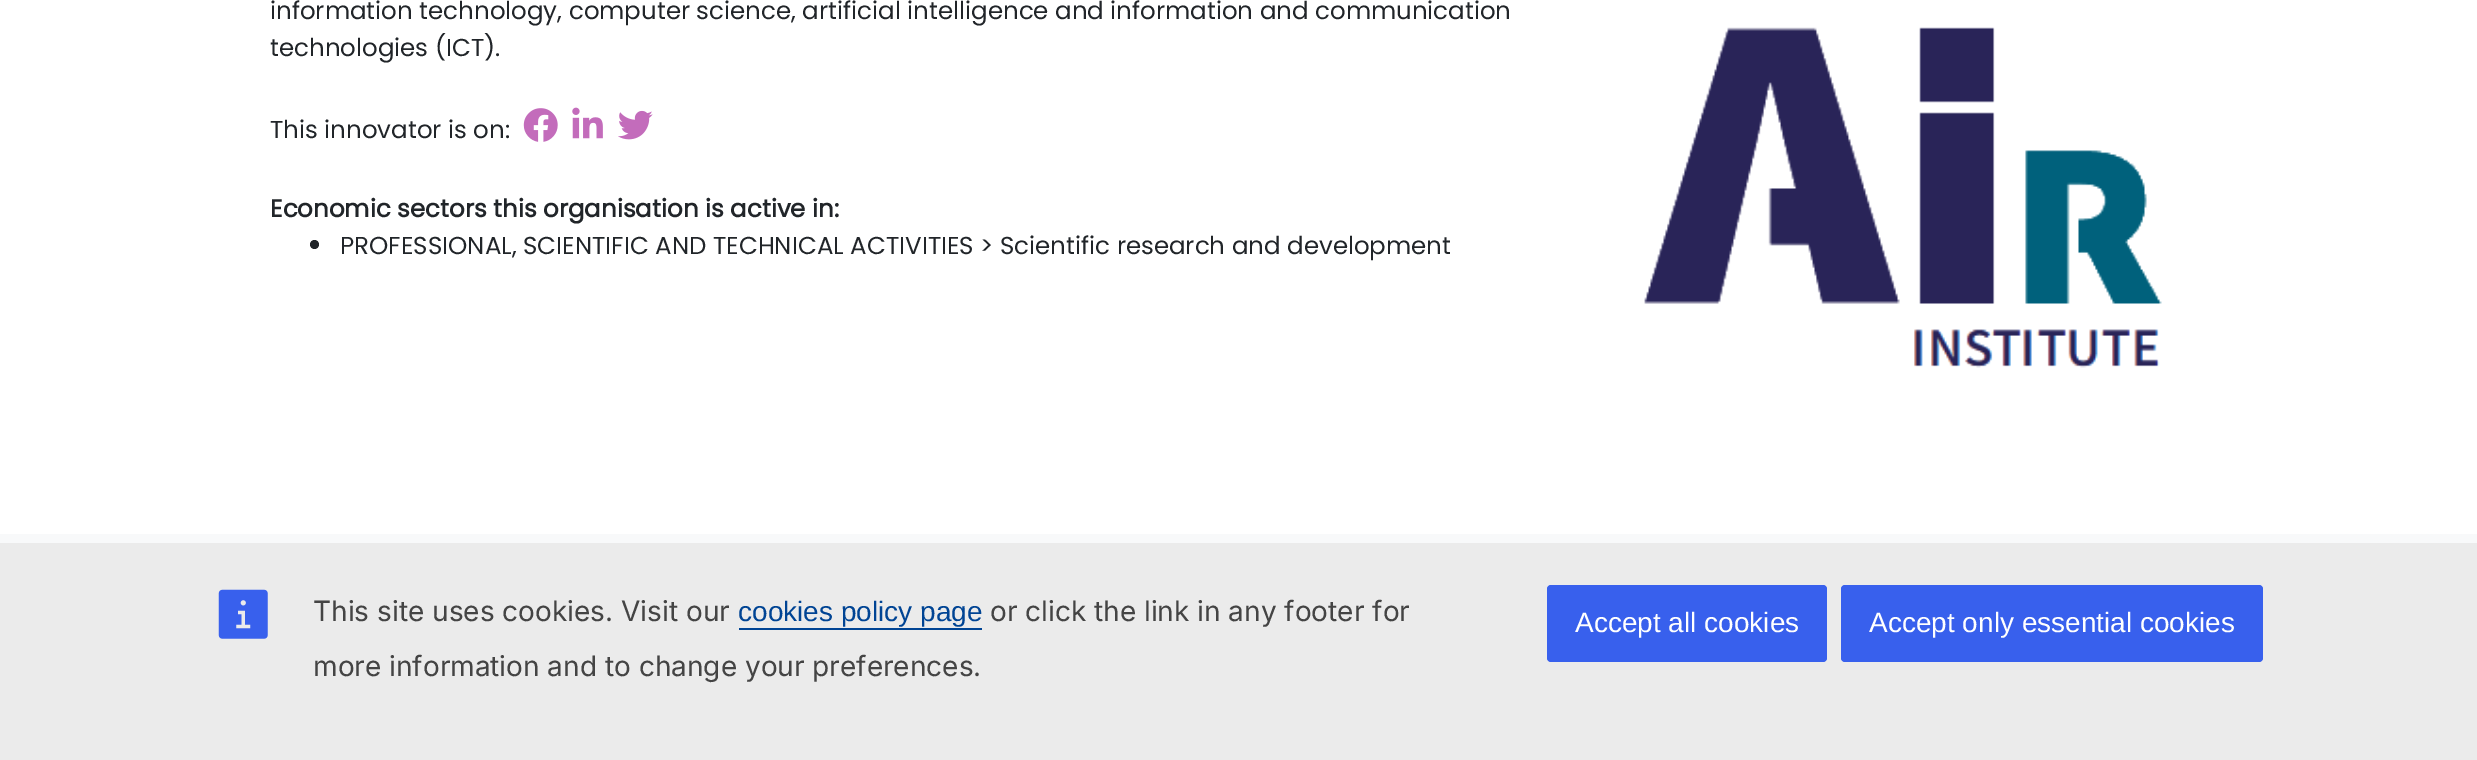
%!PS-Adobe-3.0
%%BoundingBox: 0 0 2477 760
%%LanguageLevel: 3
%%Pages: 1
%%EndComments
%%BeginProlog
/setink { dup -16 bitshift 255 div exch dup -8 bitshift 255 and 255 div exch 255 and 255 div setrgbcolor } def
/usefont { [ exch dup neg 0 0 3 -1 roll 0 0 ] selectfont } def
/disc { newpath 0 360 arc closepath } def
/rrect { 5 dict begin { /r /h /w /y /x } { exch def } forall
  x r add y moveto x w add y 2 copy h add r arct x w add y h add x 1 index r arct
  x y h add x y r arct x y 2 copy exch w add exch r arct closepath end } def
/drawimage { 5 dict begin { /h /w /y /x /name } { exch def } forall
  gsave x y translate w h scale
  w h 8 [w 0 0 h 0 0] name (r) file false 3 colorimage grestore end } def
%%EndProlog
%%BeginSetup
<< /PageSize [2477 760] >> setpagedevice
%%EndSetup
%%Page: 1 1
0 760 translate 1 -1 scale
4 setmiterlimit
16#FFFFFF setink
0 0 2477 760 rectfill
/Poppins-Regular 24.5 usefont
16#212529 setink
[
    [(information technology, computer science, artificial intelligence and information and communication) 270 19]
    [(technologies \(ICT\).) 270 56]
    [(This innovator is on:) 270 138]
] { aload pop moveto show } forall
(img1.raw) 523 108 35 34 drawimage
(img2.raw) 572 107 31 32 drawimage
(img3.raw) 618 110 35 30 drawimage
/Poppins-Bold 24.5 usefont
270 217 moveto (Economic sectors this organisation is active in:) show
314.5 244.5 4.5 disc fill
/Poppins-Regular 24.5 usefont
340 254 moveto (PROFESSIONAL, SCIENTIFIC AND TECHNICAL ACTIVITIES > Scientific research and development) show
(img4.raw) 1644 27 518 341 drawimage
16#F8F9FA setink
0 534 2477 9 rectfill
16#EBEBEB setink
0 543 2477 217 rectfill
(img5.raw) 218 589 50 50 drawimage
/Inter-Regular 28 usefont
16#444444 setink
313 621 moveto (This site uses cookies. Visit our) show
/LiberationSans-Regular 28 usefont
16#004494 setink
738 621 moveto (cookies policy page) show
739 628 243 2 rectfill
/Inter-Regular 28 usefont
16#444444 setink
990 621 moveto (or click the link in any footer for) show
313 676 moveto (more information and to change your preferences.) show
16#3860ED setink
1547 585 280 77 4 rrect fill
/LiberationSans-Regular 28 usefont
16#FFFFFF setink
1575 632 moveto (Accept all cookies) show
16#3860ED setink
1841 585 422 77 4 rrect fill
16#FFFFFF setink
1869 632 moveto (Accept only essential cookies) show
showpage
%%EOF
